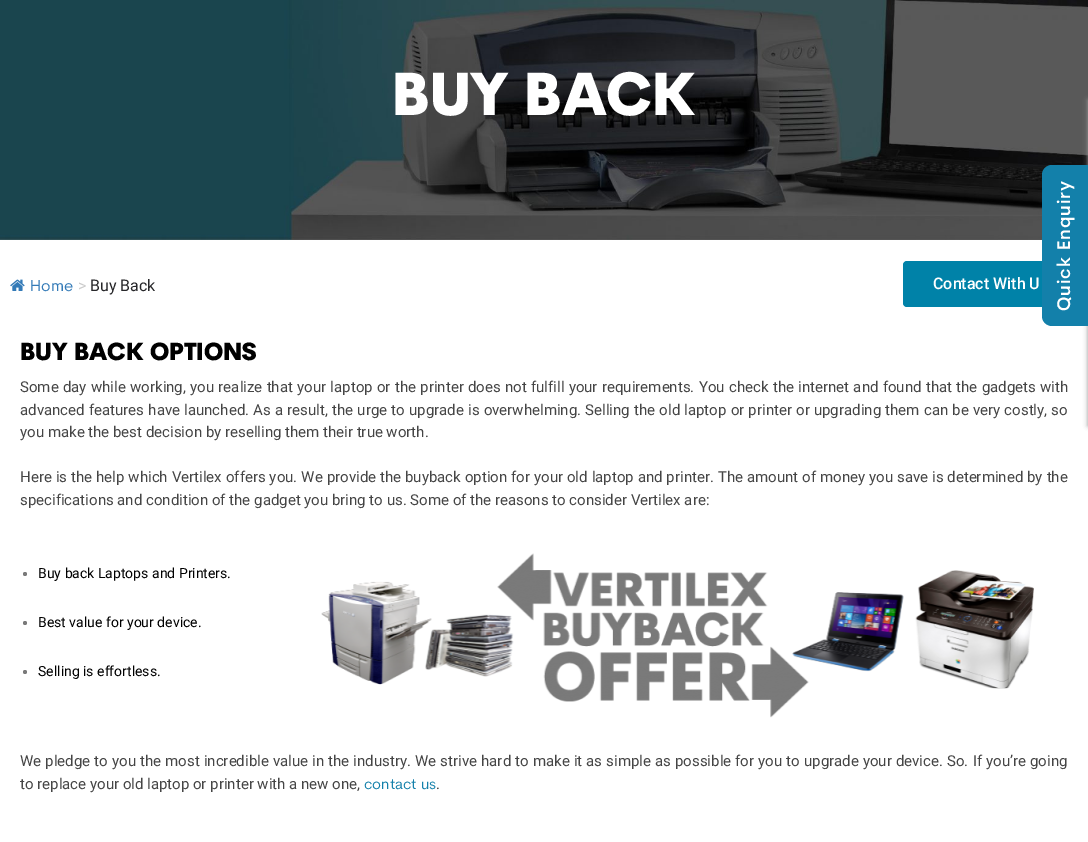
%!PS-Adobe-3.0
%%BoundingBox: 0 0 1088 842
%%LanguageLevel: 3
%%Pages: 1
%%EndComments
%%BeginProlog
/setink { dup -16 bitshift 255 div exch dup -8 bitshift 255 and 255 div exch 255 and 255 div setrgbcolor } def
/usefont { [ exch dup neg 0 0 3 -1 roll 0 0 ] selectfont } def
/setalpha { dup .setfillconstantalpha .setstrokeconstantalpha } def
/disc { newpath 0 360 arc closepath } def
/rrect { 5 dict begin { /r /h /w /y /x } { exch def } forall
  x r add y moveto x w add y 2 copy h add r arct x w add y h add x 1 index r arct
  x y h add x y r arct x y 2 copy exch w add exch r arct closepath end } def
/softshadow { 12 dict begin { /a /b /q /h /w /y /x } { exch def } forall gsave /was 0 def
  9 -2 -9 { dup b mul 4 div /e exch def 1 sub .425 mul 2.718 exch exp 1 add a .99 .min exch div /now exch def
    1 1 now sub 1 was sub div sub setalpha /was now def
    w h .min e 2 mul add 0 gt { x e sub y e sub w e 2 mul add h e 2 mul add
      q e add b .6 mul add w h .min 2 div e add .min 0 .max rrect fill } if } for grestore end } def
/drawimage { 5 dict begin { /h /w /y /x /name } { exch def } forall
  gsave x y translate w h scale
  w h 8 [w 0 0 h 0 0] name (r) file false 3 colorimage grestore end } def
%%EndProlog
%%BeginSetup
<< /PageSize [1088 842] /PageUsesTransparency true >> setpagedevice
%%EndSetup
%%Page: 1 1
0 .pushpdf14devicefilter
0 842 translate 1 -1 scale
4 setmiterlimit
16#FFFFFF setink
0 0 1088 842 rectfill
(img1.raw) 0 0 1088 240 drawimage
/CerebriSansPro-Black 59 usefont
392 115 moveto (BUY BACK) show
(img2.raw) 10 279 15 12 drawimage
/CerebriSansPro-Regular 16 usefont
16#337AB7 setink
30 291 moveto (Home) show
/Roboto-Regular 16 usefont
16#CCCCCC setink
78 291 moveto (>) show
16#27272A setink
90 291 moveto (Buy Back) show
16#0082A8 setink
903 261 175 46 4 rrect fill
/Roboto-Medium 16 usefont
16#FFFFFF setink
933 289 moveto (Contact With U) show
/CerebriSansPro-Black 24 usefont
16#000000 setink
20 360 moveto (BUY BACK OPTIONS) show
/Roboto-Regular 15 usefont
16#454545 setink
20 392 moveto 0.6 0 32 (Some day while working, you realize that your laptop or the printer does not fulfill your requirements. You check the internet and found that the gadgets with) widthshow
20 415 moveto 0.5 0 32 (advanced features have launched. As a result, the urge to upgrade is overwhelming. Selling the old laptop or printer or upgrading them can be very costly, so) widthshow
20 437 moveto (you make the best decision by reselling them their true worth.) show
20 482 moveto 0.25 0 32 (Here is the help which Vertilex offers you. We provide the buyback option for your old laptop and printer. The amount of money you save is determined by the) widthshow
20 505 moveto (specifications and condition of the gadget you bring to us. Some of the reasons to consider Vertilex are:) show
16#7A7A7A setink
25 574 2 disc fill
/Roboto-Regular 14 usefont
16#000000 setink
38 578 moveto (Buy back Laptops and Printers.) show
16#7A7A7A setink
25 623 2 disc fill
16#000000 setink
38 627 moveto (Best value for your device.) show
16#7A7A7A setink
25 672 2 disc fill
16#000000 setink
38 676 moveto (Selling is effortless.) show
(img3.raw) 321 553 713 165 drawimage
/Roboto-Regular 15 usefont
16#454545 setink
20 766 moveto 0.4 0 32 (We pledge to you the most incredible value in the industry. We strive hard to make it as simple as possible for you to upgrade your device. So. If you’re going) widthshow
20 789 moveto (to replace your old laptop or printer with a new one,) show
/CerebriSansPro-Regular 15 usefont
16#1380AA setink
364 789 moveto (contact us) show
/Roboto-Regular 15 usefont
16#454545 setink
436 789 moveto (.) show
16#999999 setink
1088 100 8 326 0 2.5 1 softshadow
16#1380AA setink
1042 316 moveto 1042 175 lineto 1042 169 1047 165 1052 165 curveto 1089 165 lineto 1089 326 lineto 1052 326 lineto 1047 326 1042 322 1042 316 curveto closepath fill
/CerebriSansPro-SemiBold 18 usefont
16#FFFFFF setink
gsave 1070 311 translate -90 rotate 0 0 moveto 1 0 (Quick Enquiry) ashow grestore
.poppdf14devicefilter showpage
%%EOF
